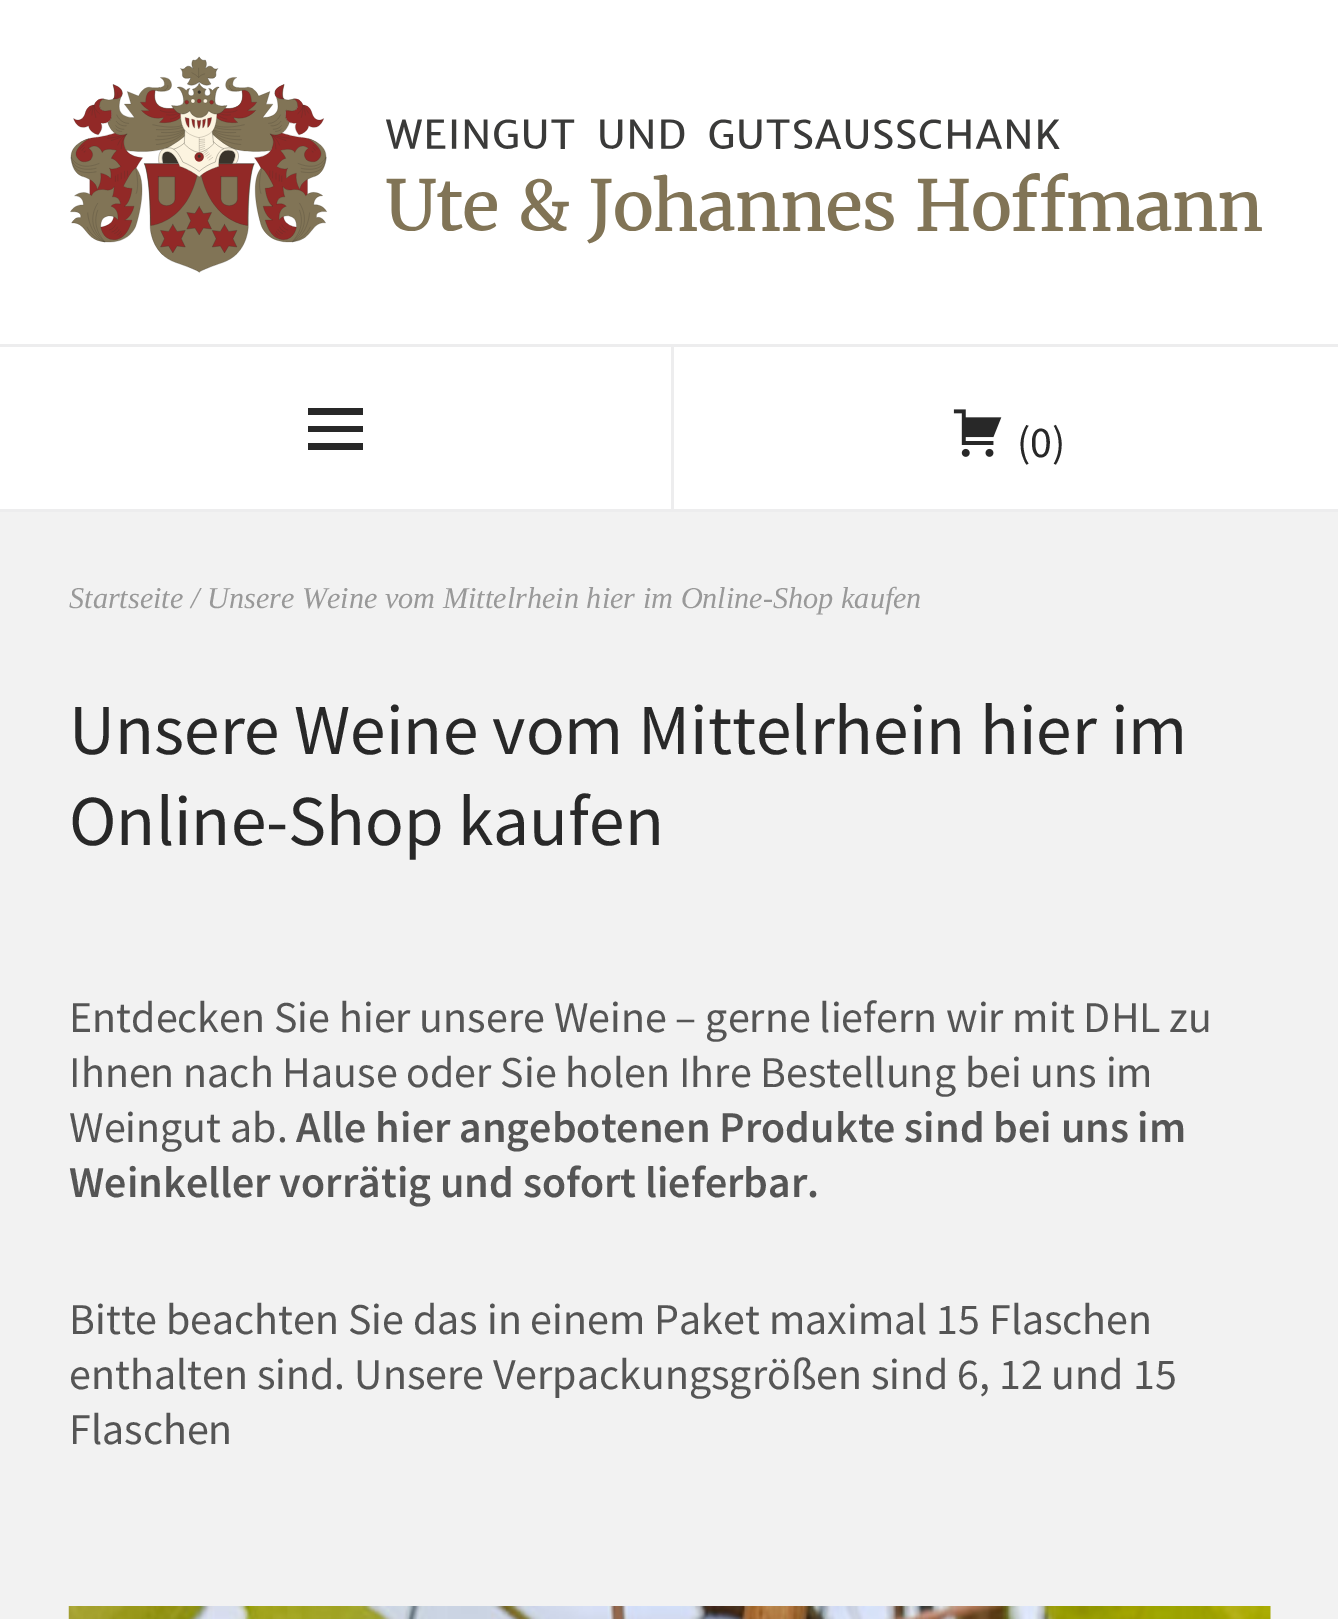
%!PS-Adobe-3.0
%%BoundingBox: 0 0 1338 1619
%%LanguageLevel: 3
%%Pages: 1
%%EndComments
%%BeginProlog
/setink { dup -16 bitshift 255 div exch dup -8 bitshift 255 and 255 div exch 255 and 255 div setrgbcolor } def
/usefont { [ exch dup neg 0 0 3 -1 roll 0 0 ] selectfont } def
/drawimage { 5 dict begin { /h /w /y /x /name } { exch def } forall
  gsave x y translate w h scale
  w h 8 [w 0 0 h 0 0] name (r) file false 3 colorimage grestore end } def
%%EndProlog
%%BeginSetup
<< /PageSize [1338 1619] >> setpagedevice
%%EndSetup
%%Page: 1 1
0 1619 translate 1 -1 scale
4 setmiterlimit
16#F2F2F2 setink
0 0 1338 1619 rectfill
16#FFFFFF setink
0 0 1338 509 rectfill
16#EDEDEE setink
0 344 1338 3 rectfill
(img1.raw) 70 56 1192 217 drawimage
0 509 1338 3 rectfill
16#282828 setink
308 450 moveto 308 443 lineto 363 443 lineto 363 450 lineto closepath 308 408 moveto 363 408 lineto 363 415 lineto 308 415 lineto closepath 308 432 moveto 308 426 lineto 363 426 lineto 363 432 lineto closepath fill
16#EDEDEE setink
671 347 3 165 rectfill
(img2.raw) 953 409 49 48 drawimage
/SourceSansPro-Regular 44 usefont
16#282828 setink
1017 457 moveto (\(0\)) show
/LiberationSerif-Italic 30.25 usefont
16#999999 setink
69 608 moveto (Startseite / Unsere Weine vom Mittelrhein hier im Online-Shop kaufen) show
/SourceSansPro-Regular 71.5 usefont
16#282828 setink
69 754 moveto (Unsere Weine vom Mittelrhein hier im) show
69 845 moveto (Online-Shop kaufen) show
/SourceSansPro-Regular 44 usefont
16#555555 setink
[
    [(Entdecken Sie hier unsere Weine – gerne liefern wir mit DHL zu) 69 1032]
    [(Ihnen nach Hause oder Sie holen Ihre Bestellung bei uns im) 69 1087]
    [(Weingut ab.) 69 1142]
] { aload pop moveto show } forall
/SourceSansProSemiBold-SemiBold 44 usefont
296 1142 moveto (Alle hier angebotenen Produkte sind bei uns im) show
69 1197 moveto (Weinkeller vorrätig und sofort lieferbar.) show
/SourceSansPro-Regular 44 usefont
[
    [(Bitte beachten Sie das in einem Paket maximal 15 Flaschen) 69 1334]
    [(enthalten sind. Unsere Verpackungsgrößen sind 6, 12 und 15) 69 1389]
    [(Flaschen) 69 1444]
] { aload pop moveto show } forall
(img3.raw) 68 1606 1203 13 drawimage
showpage
%%EOF
